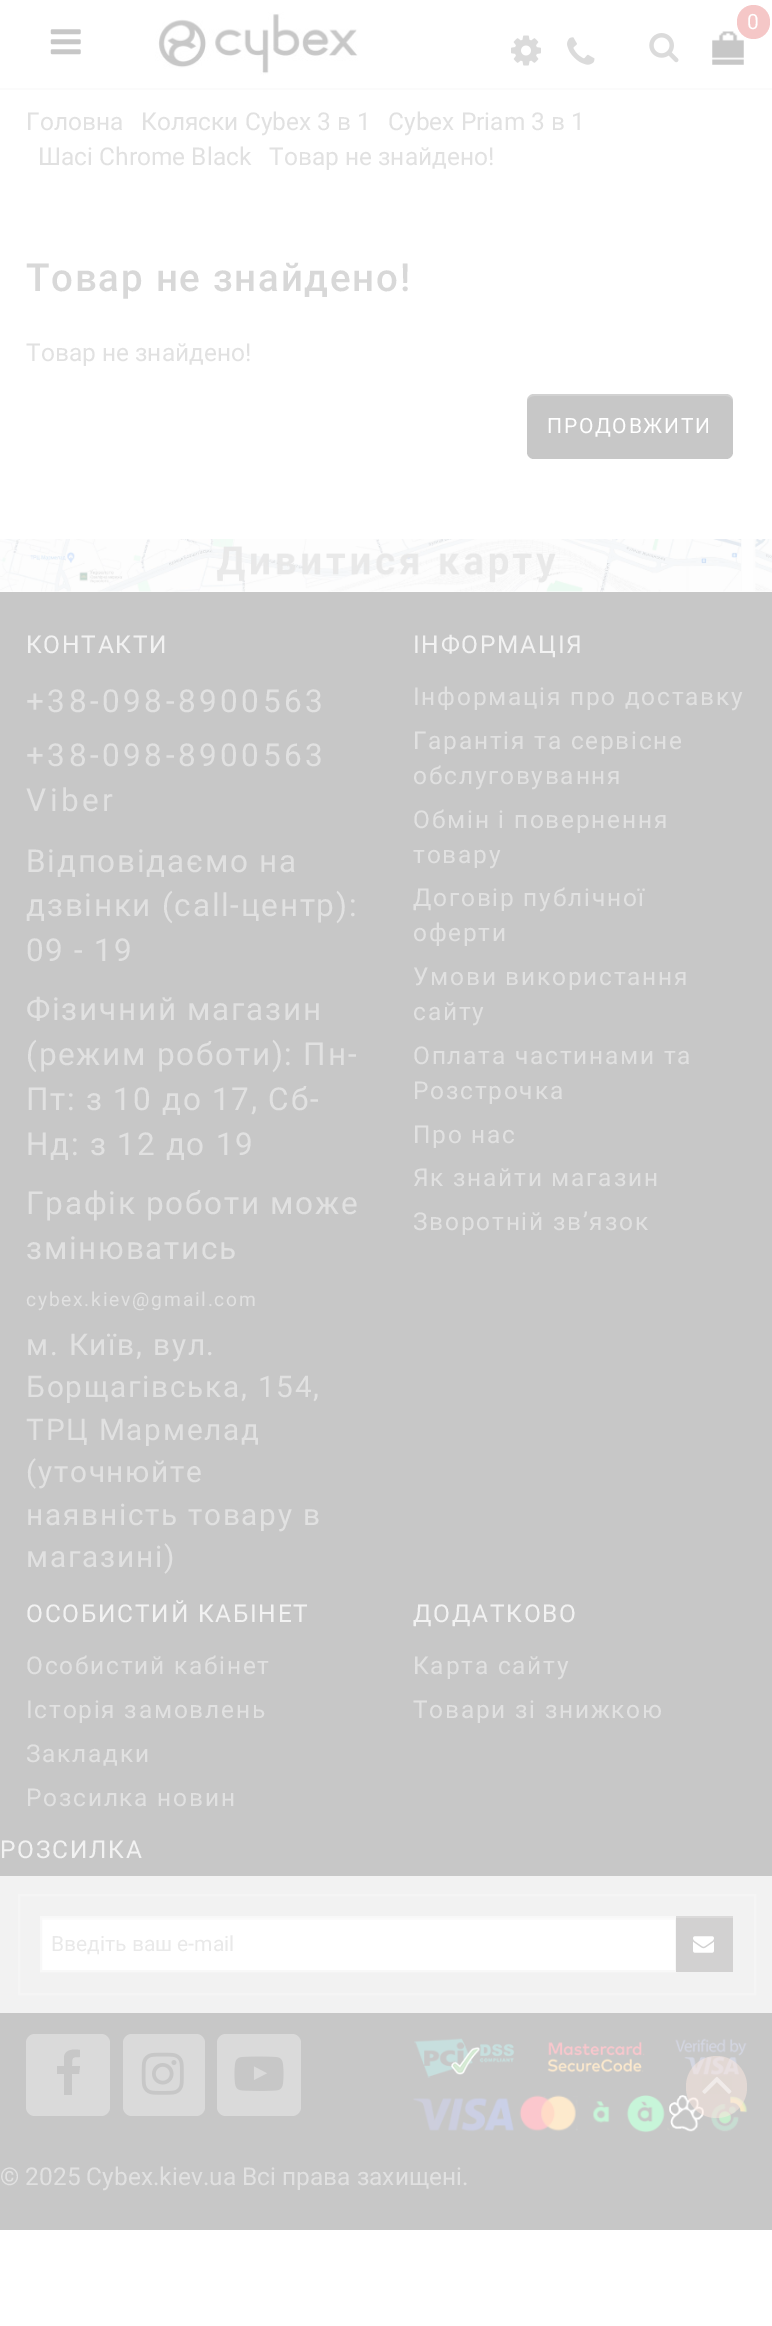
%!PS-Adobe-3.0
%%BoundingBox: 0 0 772 2326
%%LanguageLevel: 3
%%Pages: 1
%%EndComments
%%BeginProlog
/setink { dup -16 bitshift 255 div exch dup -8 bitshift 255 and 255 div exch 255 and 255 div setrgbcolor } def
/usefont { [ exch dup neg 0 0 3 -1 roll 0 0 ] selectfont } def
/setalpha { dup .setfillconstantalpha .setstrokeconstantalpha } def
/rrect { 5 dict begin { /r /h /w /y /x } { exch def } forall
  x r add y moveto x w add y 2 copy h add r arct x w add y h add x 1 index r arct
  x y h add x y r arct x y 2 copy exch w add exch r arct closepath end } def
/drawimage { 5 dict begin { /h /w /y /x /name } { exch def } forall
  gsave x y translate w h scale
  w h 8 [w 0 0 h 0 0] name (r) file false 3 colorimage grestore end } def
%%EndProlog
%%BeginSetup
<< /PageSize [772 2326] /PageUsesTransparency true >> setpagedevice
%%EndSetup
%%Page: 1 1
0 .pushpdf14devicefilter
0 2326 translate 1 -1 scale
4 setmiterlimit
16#FFFFFF setink
0 0 772 2326 rectfill
16#FBFBFB setink
0 88 772 2 rectfill
(img1.raw) 155 12 203 64 drawimage
(img2.raw) 712 31 32 34 drawimage
16#F5C7C7 setink
737 5 33 34 16.5 rrect fill
/Roboto-Regular 21 usefont
16#FFFFFF setink
747 29 moveto (0) show
(img3.raw) 511 35 30 31 drawimage
(img4.raw) 567 37 28 28 drawimage
(img5.raw) 649 33 30 30 drawimage
(img6.raw) 50 29 31 26 drawimage
/Roboto-Regular 24.5 usefont
16#E1E1E1 setink
[
    [(Головна) 26 130]
    [(Коляски Cybex 3 в 1) 141 130]
    [(Cybex Priam 3 в 1) 388 130]
    [(Шасі Chrome Black) 38 165]
    [(Товар не знайдено!) 269 165]
] { aload pop moveto show } forall
/Roboto-Medium 38.5 usefont
16#D8D8D8 setink
26 291 moveto 1.75 0 (Товар не знайдено!) ashow
/Roboto-Regular 24.5 usefont
16#E1E1E1 setink
26 361 moveto (Товар не знайдено!) show
16#C7C7C7 setink
527 394 206 65 7 rrect fill
0.2 setalpha
16#FFFFFF setink
534 396 moveto 726 396 lineto 730 396 733 399 733 402 curveto 733 401 lineto 733 397 730 394 726 394 curveto 534 394 lineto 530 394 527 397 527 401 curveto 527 402 lineto 527 399 530 396 534 396 curveto closepath fill
/Roboto-Regular 21 usefont
1 setalpha
547 433 moveto 1.75 0 (ПРОДОВЖИТИ) ashow
(img7.raw) 0 539 772 53 drawimage
16#C7C7C7 setink
0 592 772 1638 rectfill
/Roboto-Regular 24.5 usefont
16#F2F2F2 setink
26 653 moveto 1.75 0 (КОНТАКТИ) ashow
/Roboto-Regular 31.5 usefont
16#E1E1E1 setink
26 712 moveto 3.5 0 (+38-098-8900563) ashow
26 766 moveto 3.5 0 (+38-098-8900563) ashow
26 811 moveto 3.5 0 (Viber) ashow
26 872 moveto 1.75 0 (Відповідаємо на) ashow
26 916 moveto 1.75 0 (дзвінки \(call-центр\):) ashow
26 961 moveto 1.75 0 (09 - 19) ashow
26 1020 moveto 1.75 0 (Фізичний магазин) ashow
26 1065 moveto 1.75 0 (\(режим роботи\): Пн-) ashow
26 1110 moveto 1.75 0 (Пт: з 10 до 17, Сб-) ashow
26 1155 moveto 1.75 0 (Нд: з 12 до 19) ashow
26 1214 moveto 1.75 0 (Графік роботи може) ashow
26 1259 moveto 1.75 0 (змінюватись) ashow
/Roboto-Regular 19.25 usefont
26 1306 moveto 1.75 0 (cybex.kiev@gmail.com) ashow
/Roboto-Regular 29.75 usefont
26 1355 moveto 1.75 0 (м. Київ, вул.) ashow
26 1397 moveto 1.75 0 (Борщагівська, 154,) ashow
26 1440 moveto 1.75 0 (ТРЦ Мармелад) ashow
26 1482 moveto 1.75 0 (\(уточнюйте) ashow
26 1525 moveto 1.75 0 (наявність товару в) ashow
26 1567 moveto 1.75 0 (магазині\)) ashow
/Roboto-Regular 24.5 usefont
16#F2F2F2 setink
413 653 moveto 1.75 0 (ІНФОРМАЦІЯ) ashow
16#E1E1E1 setink
413 705 moveto 1.75 0 (Iнформація про доставку) ashow
413 749 moveto 1.75 0 (Гарантія та сервісне) ashow
413 784 moveto 1.75 0 (обслуговування) ashow
413 828 moveto 1.75 0 (Обмін і повернення) ashow
413 863 moveto 1.75 0 (товару) ashow
413 906 moveto 1.75 0 (Договір публічної) ashow
413 941 moveto 1.75 0 (оферти) ashow
413 985 moveto 1.75 0 (Умови використання) ashow
413 1020 moveto 1.75 0 (сайту) ashow
413 1064 moveto 1.75 0 (Оплата частинами та) ashow
413 1099 moveto 1.75 0 (Розстрочка) ashow
413 1143 moveto 1.75 0 (Про нас) ashow
413 1186 moveto 1.75 0 (Як знайти магазин) ashow
413 1230 moveto 1.75 0 (Зворотній зв’язок) ashow
16#F2F2F2 setink
26 1622 moveto 1.75 0 (ОСОБИСТИЙ КАБІНЕТ) ashow
16#E1E1E1 setink
26 1674 moveto 1.75 0 (Особистий кабінет) ashow
26 1718 moveto 1.75 0 (Історія замовлень) ashow
26 1762 moveto 1.75 0 (Закладки) ashow
26 1806 moveto 1.75 0 (Розсилка новин) ashow
16#F2F2F2 setink
413 1622 moveto 1.75 0 (ДОДАТКОВО) ashow
16#E1E1E1 setink
413 1674 moveto 1.75 0 (Карта сайту) ashow
413 1718 moveto 1.75 0 (Товари зі знижкою) ashow
16#F2F2F2 setink
0 1858 moveto 1.75 0 (РОЗСИЛКА) ashow
0 1876 772 137 rectfill
16#F5F5F5 setink
2 setlinewidth
19 1895 736 99 rectstroke
16#FFFFFF setink
42 1920 633 50 rectfill
16#FBFBFB setink
42 1918 634 2 rectfill
16#F8F8F8 setink
41 1917 635 54 rectstroke
/Roboto-Regular 21 usefont
16#E9E9E9 setink
51 1951 moveto (Введіть ваш e-mail) show
16#D2D1D1 setink
676 1918 57 54 rectfill
16#DBDADA setink
676 1916 57 2 rectfill
(img8.raw) 693 1936 21 17 drawimage
16#DADADA setink
26 2034 84 82 9 rrect fill
16#C7C7C7 setink
80 2050 moveto 74 2049 65 2049 64 2057 curveto 64 2066 lineto 57 2066 lineto 57 2074 lineto 64 2074 lineto 64 2095 lineto 72 2095 lineto 72 2074 lineto 79 2074 lineto 80 2066 lineto 72 2066 lineto 72 2057 72 2057 80 2057 curveto closepath fill
16#DADADA setink
123 2034 82 82 9 rrect fill
(img9.raw) 141 2052 43 43 drawimage
217 2034 84 82 9 rrect fill
(img10.raw) 234 2056 50 35 drawimage
(img11.raw) 413 2038 335 95 drawimage
/Roboto-Regular 24.5 usefont
16#E1E1E1 setink
0 2185 moveto (© 2025 Cybex.kiev.ua Всі права захищені.) show
0.5 setalpha
16#FCE8E0 setink
686 2056 61 62 30.5 rrect fill
1 setalpha
(img12.raw) 702 2076 30 18 drawimage
.poppdf14devicefilter showpage
%%EOF
